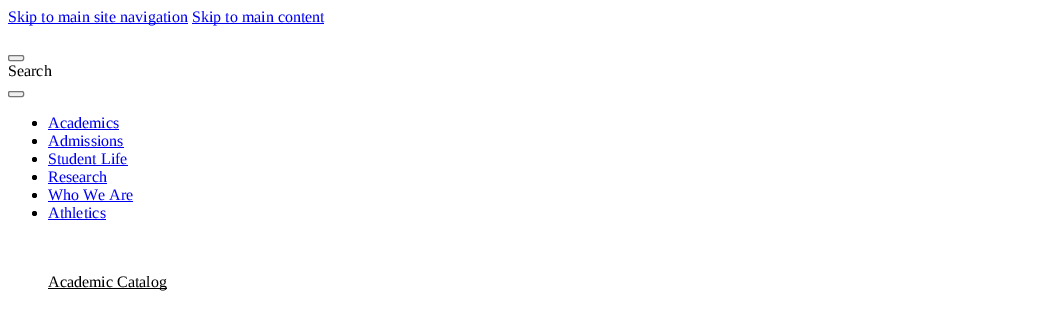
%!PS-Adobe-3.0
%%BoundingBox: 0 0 1061 314
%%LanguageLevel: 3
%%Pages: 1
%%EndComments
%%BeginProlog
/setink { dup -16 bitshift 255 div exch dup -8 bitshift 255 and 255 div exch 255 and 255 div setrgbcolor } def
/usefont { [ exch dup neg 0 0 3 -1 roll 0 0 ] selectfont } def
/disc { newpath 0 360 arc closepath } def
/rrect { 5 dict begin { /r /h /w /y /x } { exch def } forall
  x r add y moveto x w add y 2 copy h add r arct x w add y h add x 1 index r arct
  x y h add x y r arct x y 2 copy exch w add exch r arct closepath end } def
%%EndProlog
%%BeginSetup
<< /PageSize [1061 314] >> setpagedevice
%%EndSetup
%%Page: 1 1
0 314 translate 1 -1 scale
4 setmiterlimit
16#FFFFFF setink
0 0 1061 314 rectfill
16#0000EE setink
8 23 180 1 rectfill
/LiberationSerif-Regular 16 usefont
8 22 moveto (Skip to main site navigation) show
192 23 132 1 rectfill
192 22 moveto (Skip to main content) show
16#EFEFEF setink
8.5 55.5 15 5 1.5 rrect gsave fill grestore
16#767676 setink
stroke
16#000000 setink
8 76 moveto (Search) show
16#EFEFEF setink
8.5 91.5 15 5 1.5 rrect gsave fill grestore
16#767676 setink
stroke
16#000000 setink
34.5 123.5 2.5 disc fill
16#0000EE setink
48 128 moveto (Academics) show
48 129 71 1 rectfill
16#000000 setink
34.5 141.5 2.5 disc fill
16#0000EE setink
48 146 moveto (Admissions) show
48 147 76 1 rectfill
16#000000 setink
34.5 159.5 2.5 disc fill
16#0000EE setink
48 164 moveto (Student Life) show
48 165 80 1 rectfill
16#000000 setink
34.5 177.5 2.5 disc fill
16#0000EE setink
48 182 moveto (Research) show
48 183 59 1 rectfill
16#000000 setink
34.5 195.5 2.5 disc fill
16#0000EE setink
48 200 moveto (Who We Are) show
48 201 85 1 rectfill
16#000000 setink
34.5 213.5 2.5 disc fill
16#0000EE setink
48 218 moveto (Athletics) show
48 219 58 1 rectfill
16#000000 setink
48 288 119 1 rectfill
48 287 moveto (Academic Catalog) show
showpage
%%EOF
